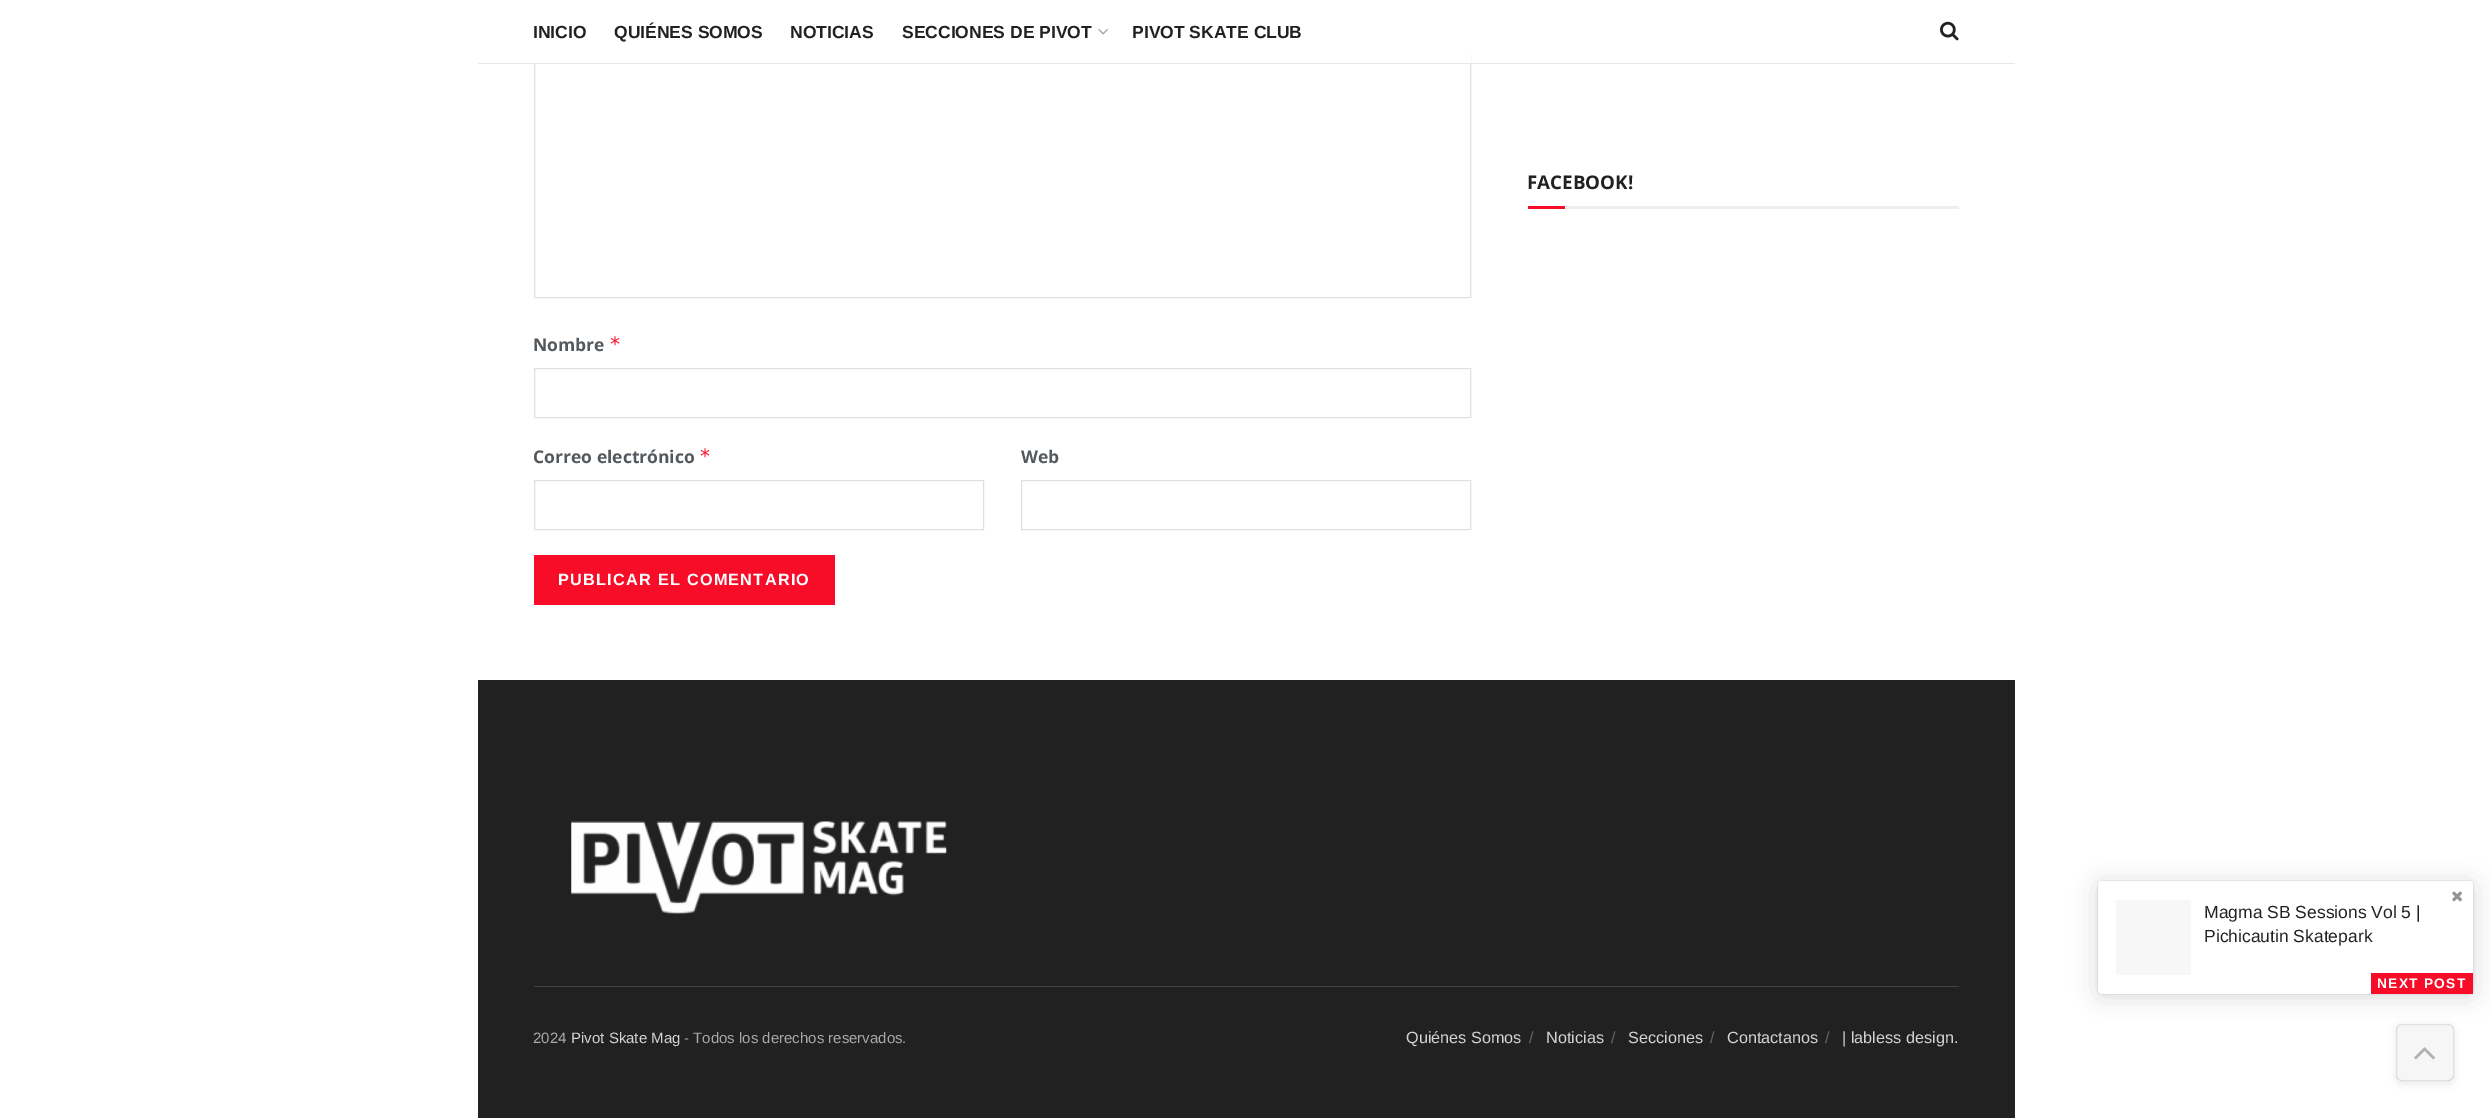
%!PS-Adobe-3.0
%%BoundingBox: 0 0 2491 1118
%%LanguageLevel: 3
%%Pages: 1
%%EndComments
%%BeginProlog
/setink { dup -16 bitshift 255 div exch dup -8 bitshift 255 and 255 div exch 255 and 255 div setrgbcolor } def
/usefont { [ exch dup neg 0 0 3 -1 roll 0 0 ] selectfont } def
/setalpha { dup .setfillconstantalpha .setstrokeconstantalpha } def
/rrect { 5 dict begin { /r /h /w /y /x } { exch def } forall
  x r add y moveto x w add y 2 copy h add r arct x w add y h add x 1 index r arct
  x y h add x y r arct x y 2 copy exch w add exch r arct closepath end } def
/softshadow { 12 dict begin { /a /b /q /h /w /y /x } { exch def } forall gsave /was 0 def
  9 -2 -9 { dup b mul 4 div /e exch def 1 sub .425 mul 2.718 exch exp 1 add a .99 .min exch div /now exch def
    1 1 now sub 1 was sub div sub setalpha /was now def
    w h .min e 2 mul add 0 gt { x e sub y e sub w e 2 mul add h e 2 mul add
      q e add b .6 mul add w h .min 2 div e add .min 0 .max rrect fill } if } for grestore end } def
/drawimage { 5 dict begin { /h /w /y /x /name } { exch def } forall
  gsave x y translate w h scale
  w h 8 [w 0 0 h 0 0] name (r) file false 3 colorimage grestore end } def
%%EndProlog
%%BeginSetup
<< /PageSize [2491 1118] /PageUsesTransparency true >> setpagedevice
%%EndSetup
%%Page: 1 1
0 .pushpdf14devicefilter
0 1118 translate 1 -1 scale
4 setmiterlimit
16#FFFFFF setink
0 0 2491 1118 rectfill
16#E0E0E0 setink
534.5 54.5 936 243 rectstroke
16#FFFFFF setink
534 54 937 9 rectfill
16#E8E8E8 setink
478 63 1537 1 rectfill
/LiberationSans-Bold 17.5 usefont
16#212121 setink
[
    [(INICIO) 533 38]
    [(QUIÉNES SOMOS) 614 38]
    [(NOTICIAS) 790 38]
    [(SECCIONES DE PIVOT) 902 38]
] { aload pop moveto show } forall
(img1.raw) 1098 29 10 6 drawimage
1132 38 moveto (PIVOT SKATE CLUB) show
(img2.raw) 1940 21 19 20 drawimage
16#EEEEEE setink
1565 206 394 3 rectfill
/OpenSans-Bold 18.75 usefont
16#212121 setink
1527 189 moveto (FACEBOOK!) show
16#F70D28 setink
1528 206 37 3 rectfill
/OpenSans-Bold 17.5 usefont
16#53585C setink
533 351 moveto (Nombre) show
/DejaVuSansMono-Regular 20 usefont
16#F70D28 setink
609 351 moveto (*) show
16#E0E0E0 setink
534.5 368.5 936 49 rectstroke
/OpenSans-Bold 17.5 usefont
16#53585C setink
533 463 moveto (Correo electrónico) show
/DejaVuSansMono-Regular 20 usefont
16#F70D28 setink
699 463 moveto (*) show
16#E0E0E0 setink
534.5 480.5 449 49 rectstroke
/OpenSans-Bold 17.5 usefont
16#53585C setink
1021 463 moveto (Web) show
16#E0E0E0 setink
1021.5 480.5 449 49 rectstroke
16#F70D28 setink
534 555 301 50 rectfill
/LiberationSans-Bold 16.25 usefont
16#FFFFFF setink
558 585 moveto 1.25 0 (PUBLICAR EL COMENTARIO) ashow
16#000000 setink
2098 884 375 112 4 12.5 0.15 softshadow
2098 881 375 113 4 0.5 0.2 softshadow
16#FFFFFF setink
2098 881 375 113 4 rrect fill
(img3.raw) 2452 891 10 11 drawimage
16#F7F7F7 setink
2116 900 75 75 rectfill
/LiberationSans-Regular 17.5 usefont
16#212121 setink
2204 918 moveto (Magma SB Sessions Vol 5 |) show
2204 942 moveto (Pichicautin Skatepark) show
16#F70D28 setink
2371 973 102 21 rectfill
/LiberationSans-Bold 13.75 usefont
16#FFFFFF setink
2377 988 moveto 1.25 0 (NEXT POST) ashow
16#212121 setink
478 680 1537 438 rectfill
(img4.raw) 571 821 376 93 drawimage
16#424242 setink
534 986 1425 1 rectfill
/LiberationSans-Regular 15 usefont
16#A8A8AA setink
533 1043 moveto (2024) show
16#D3D3D3 setink
571 1043 moveto (Pivot Skate Mag) show
16#A8A8AA setink
684 1043 moveto (- Todos los derechos reservados.) show
/LiberationSans-Regular 16.25 usefont
16#D3D3D3 setink
1406 1043 moveto (Quiénes Somos) show
16#646464 setink
1529 1043 moveto (/) show
16#D3D3D3 setink
1546 1043 moveto (Noticias) show
16#646464 setink
1611 1043 moveto (/) show
16#D3D3D3 setink
1628 1043 moveto (Secciones) show
16#646464 setink
1710 1043 moveto (/) show
16#D3D3D3 setink
1727 1043 moveto (Contactanos) show
16#646464 setink
1825 1043 moveto (/) show
16#D3D3D3 setink
1842 1043 moveto (| labless design.) show
gsave
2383 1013 moveto 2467 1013 lineto 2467 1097 lineto 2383 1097 lineto closepath 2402 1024 moveto 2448 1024 lineto 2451.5 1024 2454 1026.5 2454 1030 curveto 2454 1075 lineto 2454 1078.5 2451.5 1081 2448 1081 curveto 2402 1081 lineto 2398.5 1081 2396 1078.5 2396 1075 curveto 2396 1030 lineto 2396 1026.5 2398.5 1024 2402 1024 curveto closepath eoclip newpath
16#333333 setink
2396 1026 58 58 6 4 0.1 softshadow
grestore
0.15 setalpha
16#C3C3C3 setink
2396 1024 58 57 6 rrect fill
0.11 setalpha
16#333333 setink
2396.5 1024.5 57 56 5.5 rrect stroke
1 setalpha
(img5.raw) 2414 1047 21 13 drawimage
.poppdf14devicefilter showpage
%%EOF
